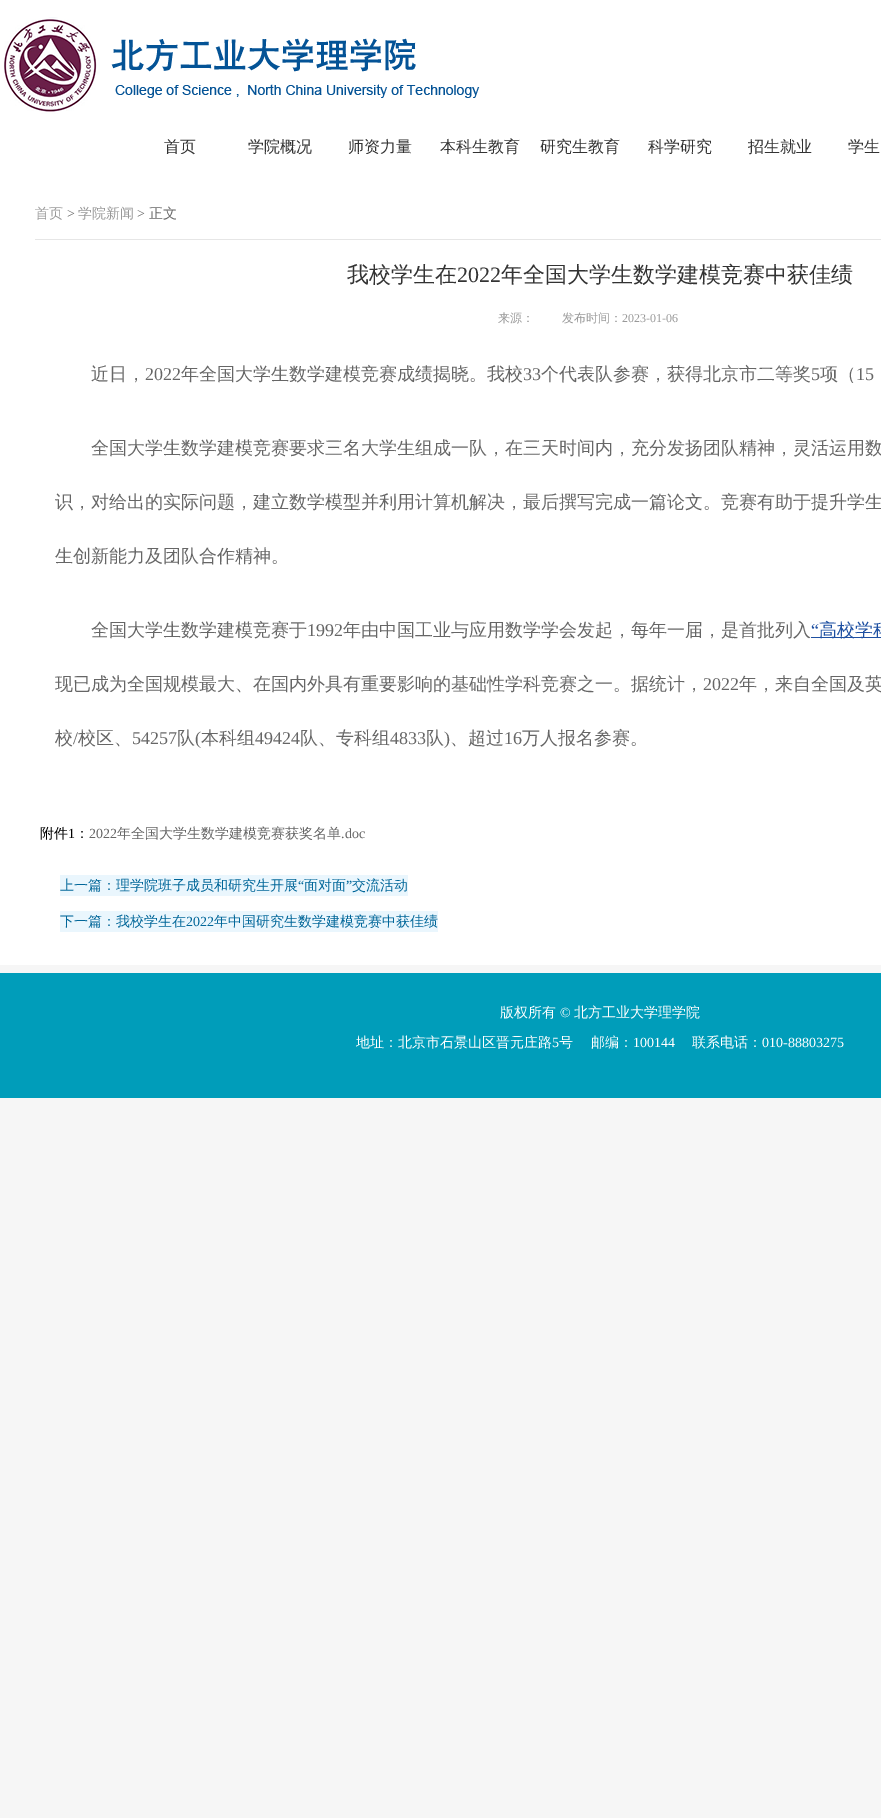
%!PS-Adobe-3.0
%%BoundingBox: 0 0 881 1818
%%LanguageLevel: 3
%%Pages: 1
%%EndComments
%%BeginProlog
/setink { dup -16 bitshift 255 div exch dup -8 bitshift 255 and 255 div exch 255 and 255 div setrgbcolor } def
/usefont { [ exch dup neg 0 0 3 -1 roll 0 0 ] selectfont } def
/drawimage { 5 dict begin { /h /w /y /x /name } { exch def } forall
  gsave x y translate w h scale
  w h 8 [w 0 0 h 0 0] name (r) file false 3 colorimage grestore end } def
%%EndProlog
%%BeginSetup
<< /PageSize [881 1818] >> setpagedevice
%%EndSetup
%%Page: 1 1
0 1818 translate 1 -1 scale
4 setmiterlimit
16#F6F6F6 setink
0 0 881 1818 rectfill
16#FFFFFF setink
0 0 881 965 rectfill
(img1.raw) 4 17 476 97 drawimage
/WenQuanYiZenHei-Medium 16 usefont
16#333333 setink
[
    [(首页) 164 152]
    [(学院概况) 248 152]
    [(师资力量) 348 152]
    [(本科生教育) 440 152]
    [(研究生教育) 540 152]
    [(科学研究) 648 152]
    [(招生就业) 748 152]
    [(学生) 848 152]
] { aload pop moveto show } forall
16#E6E6E6 setink
35 239 846 1 rectfill
/WenQuanYiZenHei-Medium 14 usefont
16#999999 setink
35 218 moveto (首页) show
/LiberationSerif-Regular 14 usefont
16#666666 setink
67 218 moveto (>) show
/WenQuanYiZenHei-Medium 14 usefont
16#999999 setink
78 218 moveto (学院新闻) show
/LiberationSerif-Regular 14 usefont
16#666666 setink
137 218 moveto (>) show
/WenQuanYiZenHei-Medium 14 usefont
149 218 moveto (正文) show
/WenQuanYiZenHei-Medium 22 usefont
16#333333 setink
347 282 moveto (我校学生在) show
/LiberationSerif-Regular 22 usefont
457 282 moveto (2022) show
/WenQuanYiZenHei-Medium 22 usefont
501 282 moveto (年全国大学生数学建模竞赛中获佳绩) show
/WenQuanYiZenHei-Medium 12 usefont
16#999999 setink
498 322 moveto (来源：) show
562 322 moveto (发布时间：) show
/LiberationSerif-Regular 12 usefont
622 322 moveto (2023-01-06) show
/WenQuanYiZenHei-Medium 18 usefont
16#666666 setink
91 380 moveto (近日，) show
/LiberationSerif-Regular 18 usefont
145 380 moveto (2022) show
/WenQuanYiZenHei-Medium 18 usefont
181 380 moveto (年全国大学生数学建模竞赛成绩揭晓。我校) show
/LiberationSerif-Regular 18 usefont
523 380 moveto (33) show
/WenQuanYiZenHei-Medium 18 usefont
541 380 moveto (个代表队参赛，获得北京市二等奖) show
/LiberationSerif-Regular 18 usefont
811 380 moveto (5) show
/WenQuanYiZenHei-Medium 18 usefont
820 380 moveto (项（) show
/LiberationSerif-Regular 18 usefont
856 380 moveto (15) show
/WenQuanYiZenHei-Medium 18 usefont
[
    [(全国大学生数学建模竞赛要求三名大学生组成一队，在三天时间内，充分发扬团队精神，灵活运用数) 91 454]
    [(识，对给出的实际问题，建立数学模型并利用计算机解决，最后撰写完成一篇论文。竞赛有助于提升学生) 55 508]
    [(生创新能力及团队合作精神。) 55 562]
    [(全国大学生数学建模竞赛于) 91 636]
] { aload pop moveto show } forall
/LiberationSerif-Regular 18 usefont
307 636 moveto (1992) show
/WenQuanYiZenHei-Medium 18 usefont
343 636 moveto (年由中国工业与应用数学学会发起，每年一届，是首批列入) show
/LiberationSerif-Regular 18 usefont
16#1E50A2 setink
811 636 moveto (“) show
811 637 70 1 rectfill
/WenQuanYiZenHei-Medium 18 usefont
819 636 moveto (高校学科) show
16#666666 setink
55 690 moveto (现已成为全国规模最大、在国内外具有重要影响的基础性学科竞赛之一。据统计，) show
/LiberationSerif-Regular 18 usefont
703 690 moveto (2022) show
/WenQuanYiZenHei-Medium 18 usefont
739 690 moveto (年，来自全国及英) show
55 744 moveto (校) show
/LiberationSerif-Regular 18 usefont
73 744 moveto (/) show
/WenQuanYiZenHei-Medium 18 usefont
78 744 moveto (校区、) show
/LiberationSerif-Regular 18 usefont
132 744 moveto (54257) show
/WenQuanYiZenHei-Medium 18 usefont
177 744 moveto (队) show
/LiberationSerif-Regular 18 usefont
195 744 moveto (\() show
/WenQuanYiZenHei-Medium 18 usefont
201 744 moveto (本科组) show
/LiberationSerif-Regular 18 usefont
255 744 moveto (49424) show
/WenQuanYiZenHei-Medium 18 usefont
300 744 moveto (队、专科组) show
/LiberationSerif-Regular 18 usefont
390 744 moveto (4833) show
/WenQuanYiZenHei-Medium 18 usefont
426 744 moveto (队) show
/LiberationSerif-Regular 18 usefont
444 744 moveto (\)) show
/WenQuanYiZenHei-Medium 18 usefont
450 744 moveto (、超过) show
/LiberationSerif-Regular 18 usefont
504 744 moveto (16) show
/WenQuanYiZenHei-Medium 18 usefont
522 744 moveto (万人报名参赛。) show
/WenQuanYiZenHei-Medium 14 usefont
16#000000 setink
40 838 moveto (附件) show
/LiberationSerif-Regular 14 usefont
68 838 moveto (1) show
/WenQuanYiZenHei-Medium 14 usefont
75 838 moveto (：) show
/LiberationSerif-Regular 14 usefont
16#666666 setink
89 838 moveto (2022) show
/WenQuanYiZenHei-Medium 14 usefont
117 838 moveto (年全国大学生数学建模竞赛获奖名单) show
/LiberationSerif-Regular 14 usefont
341 838 moveto (.doc) show
16#EAF6FD setink
60 875 348 21 rectfill
/WenQuanYiZenHei-Medium 14 usefont
16#006699 setink
60 890 moveto (上一篇：理学院班子成员和研究生开展) show
/LiberationSerif-Regular 14 usefont
298 890 moveto (“) show
/WenQuanYiZenHei-Medium 14 usefont
304 890 moveto (面对面) show
/LiberationSerif-Regular 14 usefont
346 890 moveto (”) show
/WenQuanYiZenHei-Medium 14 usefont
352 890 moveto (交流活动) show
16#EAF6FD setink
60 911 378 21 rectfill
16#006699 setink
60 926 moveto (下一篇：我校学生在) show
/LiberationSerif-Regular 14 usefont
186 926 moveto (2022) show
/WenQuanYiZenHei-Medium 14 usefont
214 926 moveto (年中国研究生数学建模竞赛中获佳绩) show
16#009DBA setink
0 973 881 125 rectfill
16#FFFFFF setink
500 1017 moveto (版权所有) show
/LiberationSerif-Regular 14 usefont
560 1017 moveto (©) show
/WenQuanYiZenHei-Medium 14 usefont
574 1017 moveto (北方工业大学理学院) show
356 1047 moveto (地址：北京市石景山区晋元庄路) show
/LiberationSerif-Regular 14 usefont
552 1047 moveto (5) show
/WenQuanYiZenHei-Medium 14 usefont
559 1047 moveto (号) show
591 1047 moveto (邮编：) show
/LiberationSerif-Regular 14 usefont
633 1047 moveto (100144) show
/WenQuanYiZenHei-Medium 14 usefont
692 1047 moveto (联系电话：) show
/LiberationSerif-Regular 14 usefont
762 1047 moveto (010-88803275) show
showpage
%%EOF
